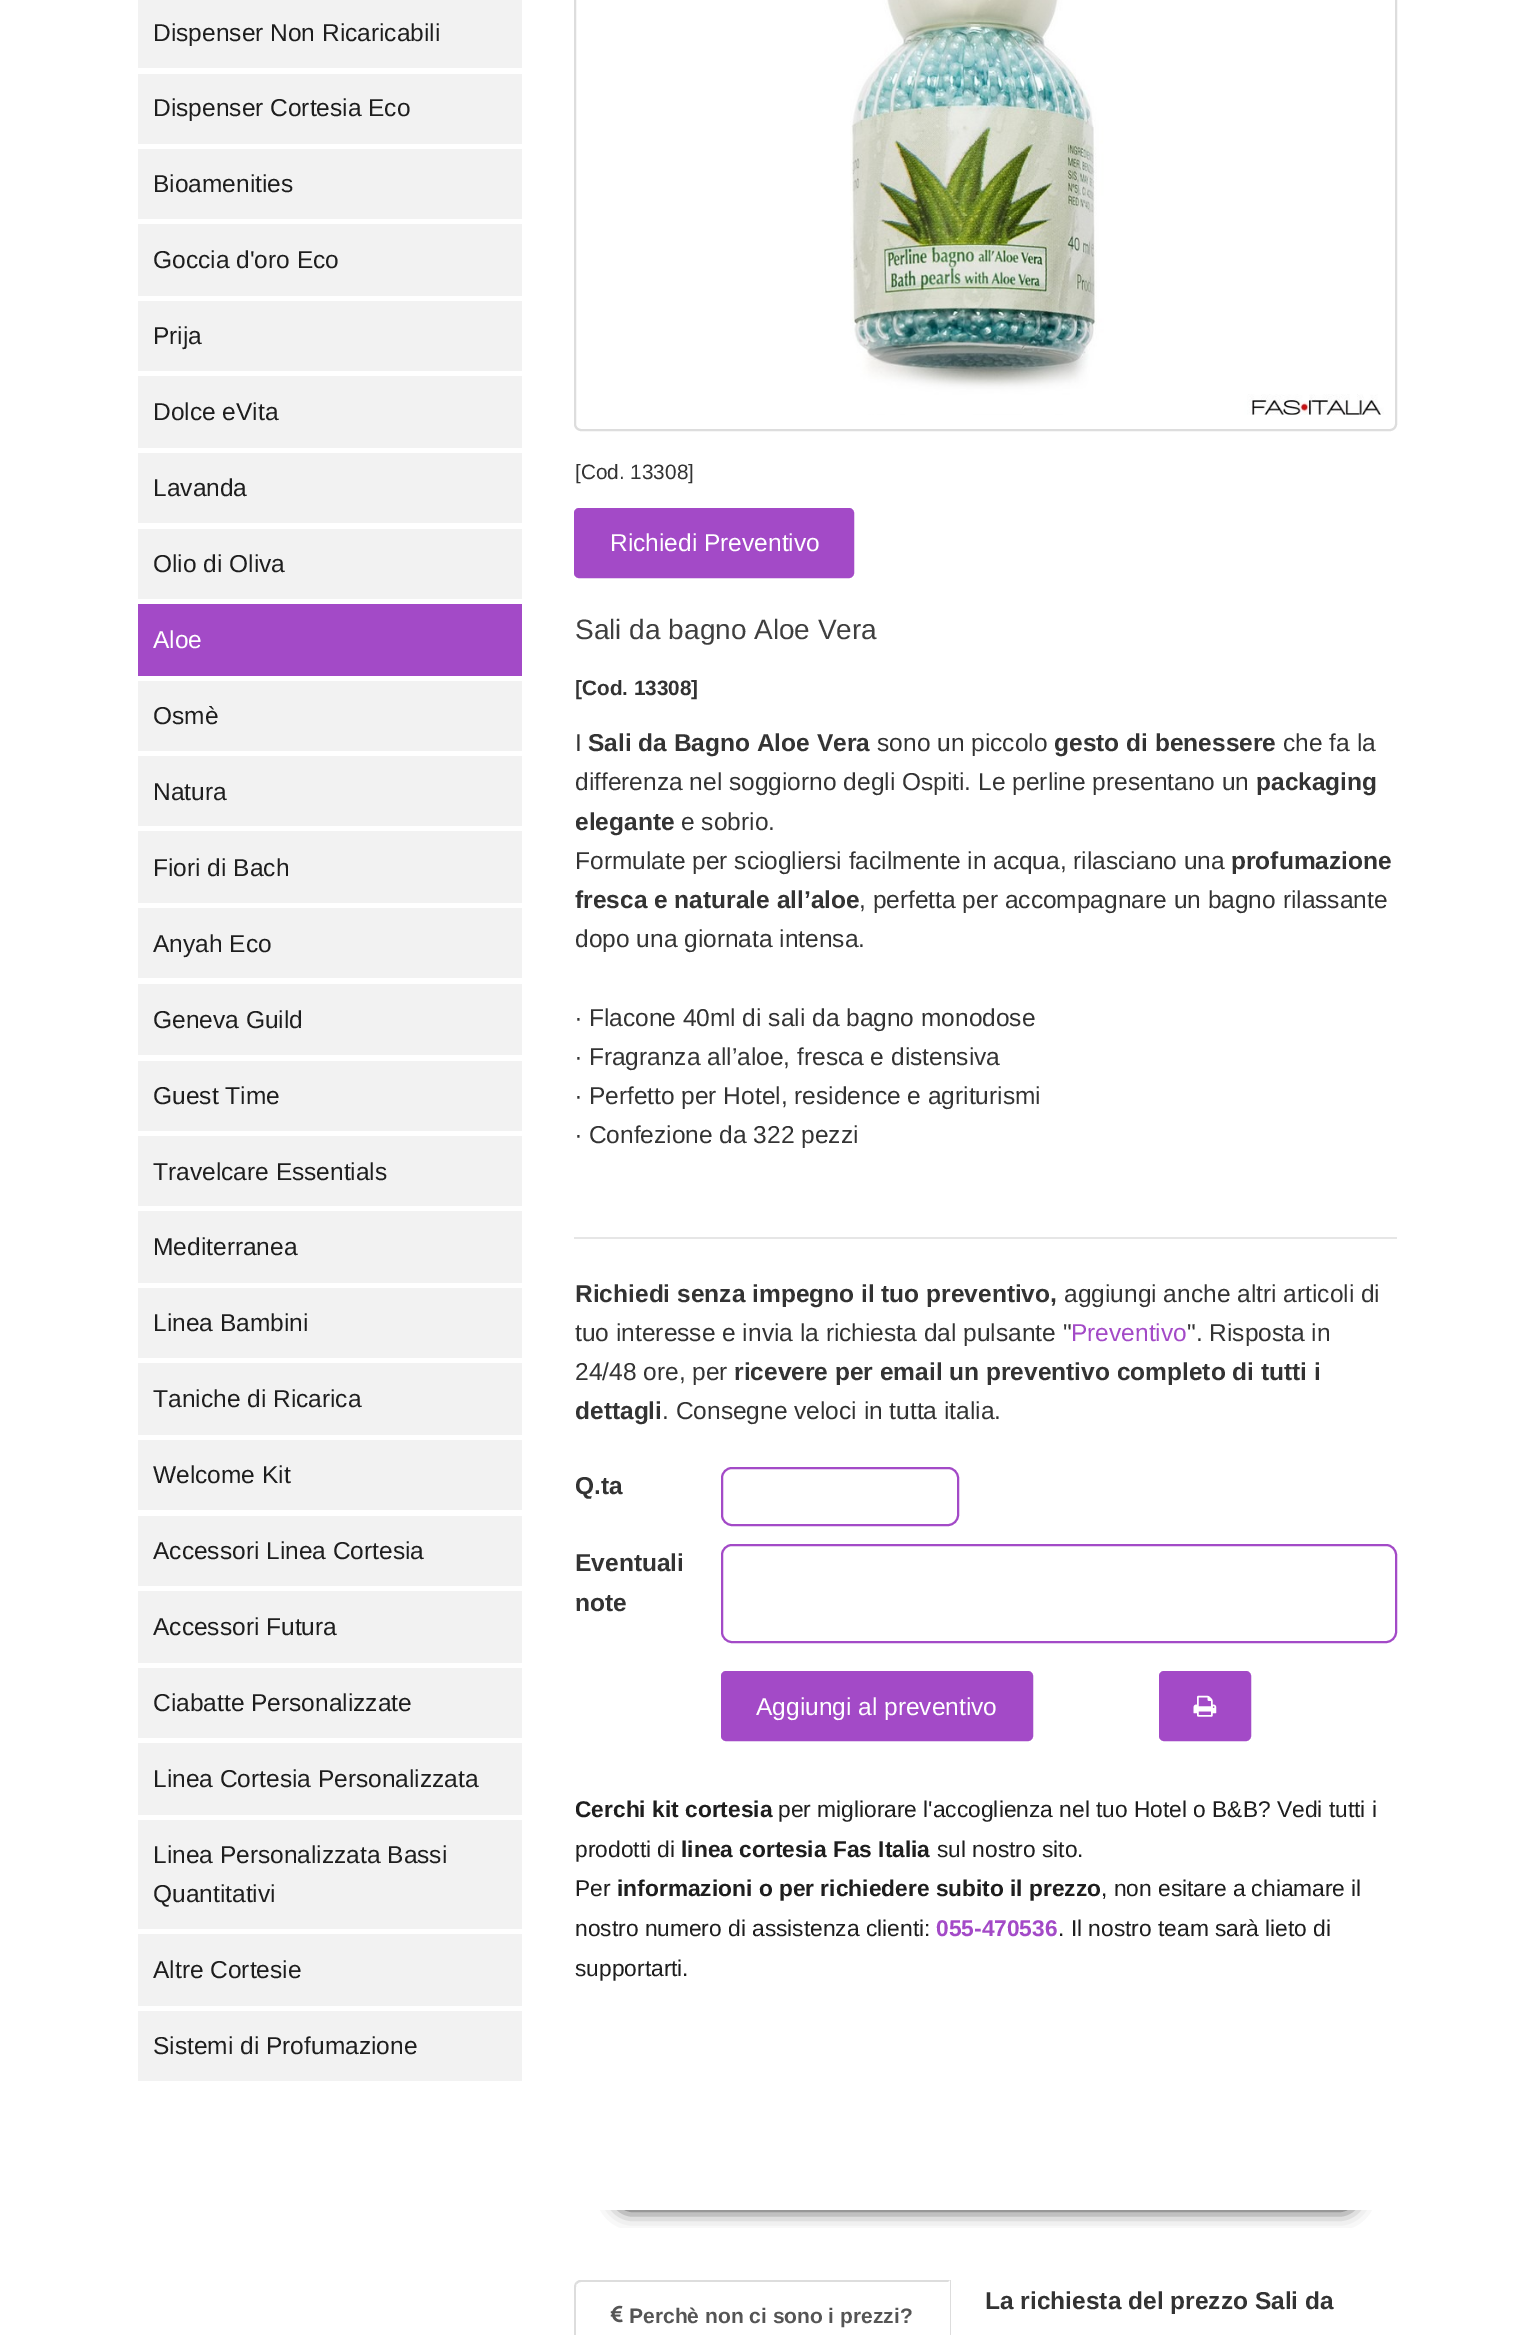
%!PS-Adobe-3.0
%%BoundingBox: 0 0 1534 2335
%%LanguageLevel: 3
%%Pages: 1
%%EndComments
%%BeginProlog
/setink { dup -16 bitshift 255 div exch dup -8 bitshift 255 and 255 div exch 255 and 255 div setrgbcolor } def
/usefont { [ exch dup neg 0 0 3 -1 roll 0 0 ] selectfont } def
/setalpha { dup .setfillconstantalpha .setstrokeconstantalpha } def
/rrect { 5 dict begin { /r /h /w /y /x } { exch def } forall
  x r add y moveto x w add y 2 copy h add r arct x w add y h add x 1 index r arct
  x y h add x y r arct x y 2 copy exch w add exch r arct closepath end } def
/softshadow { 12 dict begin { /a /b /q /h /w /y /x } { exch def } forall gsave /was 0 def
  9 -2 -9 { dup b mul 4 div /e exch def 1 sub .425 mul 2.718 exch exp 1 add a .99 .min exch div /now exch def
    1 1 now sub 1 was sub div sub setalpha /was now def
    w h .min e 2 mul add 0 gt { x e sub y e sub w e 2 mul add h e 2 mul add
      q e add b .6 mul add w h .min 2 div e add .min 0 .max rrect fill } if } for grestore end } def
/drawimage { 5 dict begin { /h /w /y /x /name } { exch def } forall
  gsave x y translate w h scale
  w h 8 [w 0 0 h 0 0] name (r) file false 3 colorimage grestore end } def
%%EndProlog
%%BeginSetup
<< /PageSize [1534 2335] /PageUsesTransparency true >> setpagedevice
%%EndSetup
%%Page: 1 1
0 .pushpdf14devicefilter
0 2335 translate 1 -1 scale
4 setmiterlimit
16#FFFFFF setink
0 0 1534 2335 rectfill
16#F2F2F2 setink
138 0 384 68 rectfill
/LiberationSans-Regular 24.5 usefont
16#1E1E1E setink
153 41 moveto (Dispenser Non Ricaricabili) show
16#F2F2F2 setink
138 74 384 70 rectfill
16#1E1E1E setink
153 116 moveto (Dispenser Cortesia Eco) show
16#F2F2F2 setink
138 149 384 70 rectfill
16#1E1E1E setink
153 192 moveto (Bioamenities) show
16#F2F2F2 setink
138 224 384 72 rectfill
16#1E1E1E setink
153 268 moveto (Goccia d'oro Eco) show
16#F2F2F2 setink
138 301 384 70 rectfill
16#1E1E1E setink
153 344 moveto (Prija) show
16#F2F2F2 setink
138 376 384 72 rectfill
16#1E1E1E setink
153 420 moveto (Dolce eVita) show
16#F2F2F2 setink
138 453 384 70 rectfill
16#1E1E1E setink
153 496 moveto (Lavanda) show
16#F2F2F2 setink
138 529 384 70 rectfill
16#1E1E1E setink
153 572 moveto (Olio di Oliva) show
16#A34AC7 setink
138 604 384 72 rectfill
16#FFFFFF setink
153 648 moveto (Aloe) show
16#F2F2F2 setink
138 681 384 70 rectfill
16#1E1E1E setink
153 724 moveto (Osmè) show
16#F2F2F2 setink
138 756 384 70 rectfill
16#1E1E1E setink
153 800 moveto (Natura) show
16#F2F2F2 setink
138 831 384 72 rectfill
16#1E1E1E setink
153 876 moveto (Fiori di Bach) show
16#F2F2F2 setink
138 908 384 70 rectfill
16#1E1E1E setink
153 952 moveto (Anyah Eco) show
16#F2F2F2 setink
138 984 384 71 rectfill
16#1E1E1E setink
153 1028 moveto (Geneva Guild) show
16#F2F2F2 setink
138 1061 384 70 rectfill
16#1E1E1E setink
153 1104 moveto (Guest Time) show
16#F2F2F2 setink
138 1136 384 70 rectfill
16#1E1E1E setink
153 1180 moveto (Travelcare Essentials) show
16#F2F2F2 setink
138 1211 384 72 rectfill
16#1E1E1E setink
153 1255 moveto (Mediterranea) show
16#F2F2F2 setink
138 1288 384 70 rectfill
16#1E1E1E setink
153 1331 moveto (Linea Bambini) show
16#F2F2F2 setink
138 1363 384 72 rectfill
16#1E1E1E setink
153 1407 moveto (Taniche di Ricarica) show
16#F2F2F2 setink
138 1440 384 70 rectfill
16#1E1E1E setink
153 1483 moveto (Welcome Kit) show
16#F2F2F2 setink
138 1516 384 70 rectfill
16#1E1E1E setink
153 1559 moveto (Accessori Linea Cortesia) show
16#F2F2F2 setink
138 1591 384 72 rectfill
16#1E1E1E setink
153 1635 moveto (Accessori Futura) show
16#F2F2F2 setink
138 1668 384 70 rectfill
16#1E1E1E setink
153 1711 moveto (Ciabatte Personalizzate) show
16#F2F2F2 setink
138 1743 384 72 rectfill
16#1E1E1E setink
153 1787 moveto (Linea Cortesia Personalizzata) show
16#F2F2F2 setink
138 1820 384 109 rectfill
16#1E1E1E setink
153 1863 moveto (Linea Personalizzata Bassi) show
153 1902 moveto (Quantitativi) show
16#F2F2F2 setink
138 1934 384 72 rectfill
16#1E1E1E setink
153 1978 moveto (Altre Cortesie) show
16#F2F2F2 setink
138 2011 384 70 rectfill
16#1E1E1E setink
153 2054 moveto (Sistemi di Profumazione) show
16#DDDDDD setink
2 setlinewidth
575 -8 821 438 6 rrect stroke
(img1.raw) 850 0 534 415 drawimage
/LiberationSans-Regular 20.75 usefont
16#333333 setink
575 479 moveto ([Cod. 13308]) show
16#A34AC7 setink
575 509 278 68 4 rrect gsave fill grestore
stroke
/LiberationSans-Regular 24.5 usefont
16#FFFFFF setink
610 551 moveto (Richiedi Preventivo) show
/LiberationSans-Regular 28 usefont
16#3F3F3F setink
575 639 moveto (Sali da bagno Aloe Vera) show
/LiberationSans-Bold 20.75 usefont
16#333333 setink
575 695 moveto ([Cod. 13308]) show
/LiberationSans-Regular 24.5 usefont
575 751 moveto (I) show
/LiberationSans-Bold 24.5 usefont
588 751 moveto (Sali da Bagno Aloe Vera) show
/LiberationSans-Regular 24.5 usefont
877 751 moveto (sono un piccolo) show
/LiberationSans-Bold 24.5 usefont
1054 751 moveto (gesto di benessere) show
/LiberationSans-Regular 24.5 usefont
1283 751 moveto (che fa la) show
575 790 moveto (differenza nel soggiorno degli Ospiti. Le perline presentano un) show
/LiberationSans-Bold 24.5 usefont
1256 790 moveto (packaging) show
575 830 moveto (elegante) show
/LiberationSans-Regular 24.5 usefont
681 830 moveto (e sobrio.) show
575 869 moveto (Formulate per sciogliersi facilmente in acqua, rilasciano una) show
/LiberationSans-Bold 24.5 usefont
1231 869 moveto (profumazione) show
575 908 moveto (fresca e naturale all’aloe) show
/LiberationSans-Regular 24.5 usefont
[
    [(, perfetta per accompagnare un bagno rilassante) 859 908]
    [(dopo una giornata intensa.) 575 947]
    [(∙ Flacone 40ml di sali da bagno monodose) 575 1026]
    [(∙ Fragranza all’aloe, fresca e distensiva) 575 1065]
    [(∙ Perfetto per Hotel, residence e agriturismi) 575 1104]
    [(∙ Confezione da 322 pezzi) 575 1143]
] { aload pop moveto show } forall
16#E6E6E6 setink
574 1237 823 2 rectfill
/LiberationSans-Bold 24.5 usefont
16#333333 setink
575 1302 moveto (Richiedi senza impegno il tuo preventivo,) show
/LiberationSans-Regular 24.5 usefont
1064 1302 moveto (aggiungi anche altri articoli di) show
575 1341 moveto (tuo interesse e invia la richiesta dal pulsante ") show
16#A34AC7 setink
1071 1341 moveto (Preventivo) show
16#333333 setink
1187 1341 moveto (". Risposta in) show
575 1380 moveto (24/48 ore, per) show
/LiberationSans-Bold 24.5 usefont
734 1380 moveto (ricevere per email un preventivo completo di tutti i) show
575 1419 moveto (dettagli) show
/LiberationSans-Regular 24.5 usefont
662 1419 moveto (. Consegne veloci in tutta italia.) show
/LiberationSans-Bold 24.5 usefont
575 1494 moveto (Q.ta) show
16#A34AC7 setink
722 1468 236 57 10 rrect stroke
16#333333 setink
575 1571 moveto (Eventuali) show
575 1611 moveto (note) show
16#A34AC7 setink
722 1545 674 97 10 rrect stroke
722 1672 310 68 4 rrect gsave fill grestore
stroke
/LiberationSans-Regular 24.5 usefont
16#FFFFFF setink
756 1715 moveto (Aggiungi al preventivo) show
16#A34AC7 setink
1160 1672 90 68 4 rrect gsave fill grestore
stroke
(img2.raw) 1193 1695 24 22 drawimage
/LiberationSans-Bold 22.75 usefont
16#1E1E1E setink
575 1817 moveto (Cerchi kit cortesia) show
/LiberationSans-Regular 22.75 usefont
778 1817 moveto (per migliorare l'accoglienza nel tuo Hotel o B&B? Vedi tutti i) show
575 1857 moveto (prodotti di) show
/LiberationSans-Bold 22.75 usefont
681 1857 moveto (linea cortesia Fas Italia) show
/LiberationSans-Regular 22.75 usefont
937 1857 moveto (sul nostro sito.) show
575 1896 moveto (Per) show
/LiberationSans-Bold 22.75 usefont
617 1896 moveto (informazioni o per richiedere subito il prezzo) show
/LiberationSans-Regular 22.75 usefont
1101 1896 moveto (, non esitare a chiamare il) show
575 1936 moveto (nostro numero di assistenza clienti:) show
/LiberationSans-Bold 22.75 usefont
16#A34AC7 setink
936 1936 moveto (055-470536) show
/LiberationSans-Regular 22.75 usefont
16#1E1E1E setink
1058 1936 moveto (. Il nostro team sarà lieto di) show
575 1976 moveto (supportarti.) show
gsave
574 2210 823 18 rectclip
16#000000 setink
616 2175 740 35 17.5 9 0.8 softshadow
grestore
/LiberationSans-Bold 24.5 usefont
16#333333 setink
985 2309 moveto (La richiesta del prezzo Sali da) show
16#DDDDDD setink
950 2280 1 55 rectfill
581 2282 moveto 579 2282 578 2283 577 2284 curveto 576 2282 lineto 579 2280 lineto 950 2280 lineto 948 2282 lineto closepath fill
574 2287 moveto 574 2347 lineto 574 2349 575 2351 576 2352 curveto 577 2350 lineto 576 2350 576 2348 576 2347 curveto 576 2287 lineto 576 2286 576 2284 577 2284 curveto 576 2282 lineto 575 2283 574 2285 574 2287 curveto closepath fill
(img3.raw) 610 2305 13 18 drawimage
/LiberationSans-Bold 21 usefont
16#555555 setink
629 2323 moveto (Perchè non ci sono i prezzi?) show
.poppdf14devicefilter showpage
%%EOF
